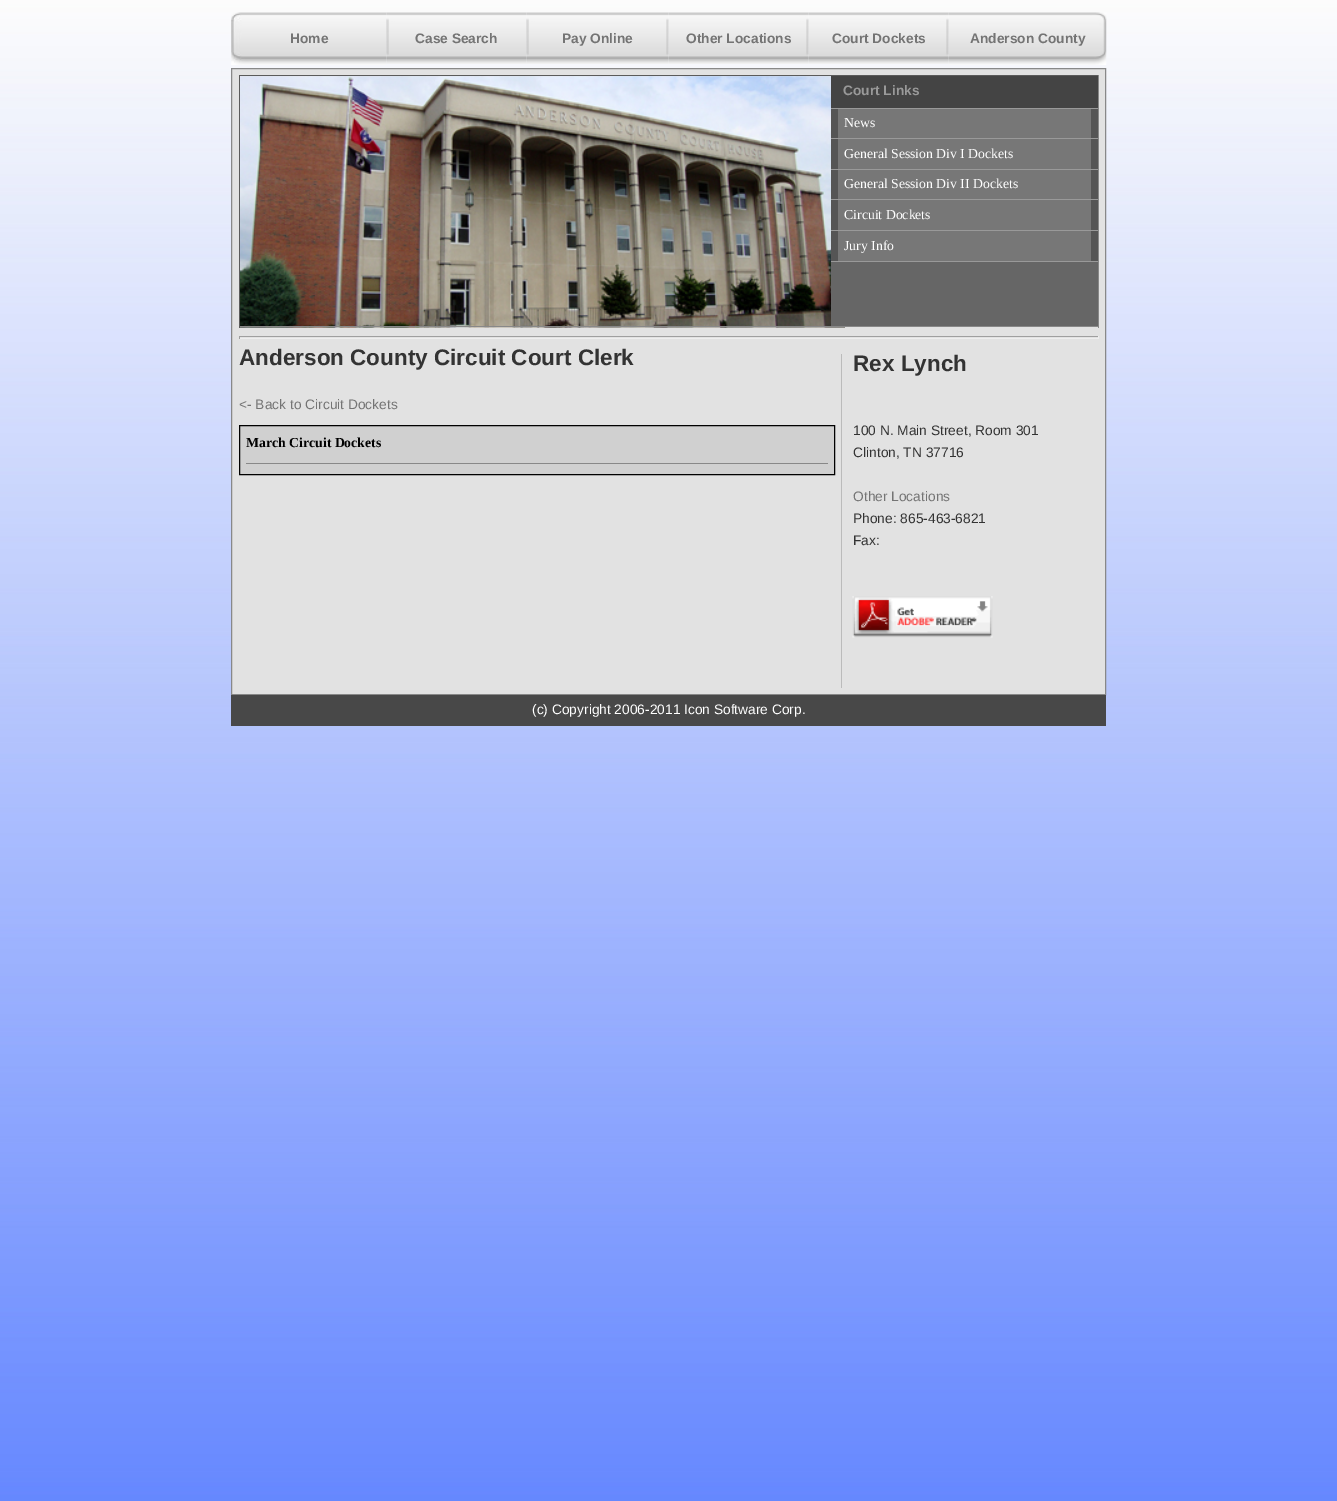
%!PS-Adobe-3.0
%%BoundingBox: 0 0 1337 1501
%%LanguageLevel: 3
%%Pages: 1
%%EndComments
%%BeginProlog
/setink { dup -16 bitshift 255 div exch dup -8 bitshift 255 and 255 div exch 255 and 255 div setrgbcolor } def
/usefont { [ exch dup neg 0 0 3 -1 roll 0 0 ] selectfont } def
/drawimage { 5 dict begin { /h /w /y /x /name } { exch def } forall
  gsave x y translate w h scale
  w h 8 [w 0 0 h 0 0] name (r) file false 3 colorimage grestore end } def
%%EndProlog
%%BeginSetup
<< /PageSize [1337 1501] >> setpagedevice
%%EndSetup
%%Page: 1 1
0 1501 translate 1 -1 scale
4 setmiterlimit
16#FFFFFF setink
0 0 1337 1501 rectfill
(img1.raw) 0 0 1337 1501 drawimage
(img2.raw) 231 12 156 53 drawimage
/LiberationSans-Bold 13.75 usefont
16#747474 setink
290 43 moveto (Home) show
(img3.raw) 386 12 141 52 drawimage
415 43 moveto (Case Search) show
(img4.raw) 526 12 143 52 drawimage
562 43 moveto (Pay Online) show
(img5.raw) 668 12 141 52 drawimage
686 43 moveto (Other Locations) show
(img6.raw) 808 12 141 52 drawimage
832 43 moveto (Court Dockets) show
(img7.raw) 948 12 159 53 drawimage
970 43 moveto (Anderson County) show
16#E2E2E2 setink
231.5 68.5 moveto 1105.5 68.5 lineto 1105.5 694.5 lineto 231.5 694.5 lineto closepath gsave fill grestore
16#888888 setink
stroke
(img8.raw) 240 76 605 252 drawimage
[
    [239 75 860 1 16#5B5B5B]
    [1098 75 1 253 16#888888]
    [239 326 860 1 16#888888]
    [239 75 1 253 16#5B5B5B]
    [831 262 267 64 16#666666]
    [831 108 267 1 16#999999]
    [831 76 267 32 16#444444]
] { aload pop setink rectfill } forall
16#999999 setink
843 95 moveto (Court Links) show
[
    [831 138 267 1 16#999999]
    [838 109 253 29 16#777777]
    [1091 109 7 29 16#555555]
    [831 109 7 29 16#555555]
] { aload pop setink rectfill } forall
/LiberationSerif-Regular 13.75 usefont
16#FFFFFF setink
844 127 moveto (News) show
[
    [831 169 267 1 16#999999]
    [838 139 253 30 16#777777]
    [1091 139 7 30 16#555555]
    [831 139 7 30 16#555555]
] { aload pop setink rectfill } forall
16#FFFFFF setink
844 158 moveto (General Session Div I Dockets) show
[
    [831 199 267 1 16#999999]
    [838 170 253 29 16#777777]
    [1091 170 7 29 16#555555]
    [831 170 7 29 16#555555]
] { aload pop setink rectfill } forall
16#FFFFFF setink
844 188 moveto (General Session Div II Dockets) show
[
    [831 230 267 1 16#999999]
    [838 200 253 30 16#777777]
    [1091 200 7 30 16#555555]
    [831 200 7 30 16#555555]
] { aload pop setink rectfill } forall
16#FFFFFF setink
844 219 moveto (Circuit Dockets) show
[
    [831 261 267 1 16#999999]
    [838 231 253 30 16#777777]
    [1091 231 7 30 16#555555]
    [831 231 7 30 16#555555]
] { aload pop setink rectfill } forall
16#FFFFFF setink
844 250 moveto (Jury Info) show
[
    [239 336 860 1 16#9F9F9F]
    [1098 336 1 3 16#EEEEEE]
    [239 338 860 1 16#EEEEEE]
    [239 336 1 3 16#9F9F9F]
] { aload pop setink rectfill } forall
/LiberationSans-Bold 22.5 usefont
16#333333 setink
239 365 moveto (Anderson County Circuit Court Clerk) show
16#BBBBBB setink
841 354 1 334 rectfill
16#333333 setink
853 371 moveto (Rex Lynch) show
/LiberationSans-Regular 13.75 usefont
853 435 moveto (100 N. Main Street, Room 301) show
853 457 moveto (Clinton, TN 37716) show
16#747474 setink
853 501 moveto (Other Locations) show
16#333333 setink
853 523 moveto (Phone: 865-463-6821) show
853 545 moveto (Fax:) show
(img9.raw) 852 596 141 42 drawimage
16#747474 setink
239 409 moveto (<- Back to Circuit Dockets) show
16#D0D0D0 setink
239.5 425.5 moveto 834.5 425.5 lineto 834.5 474.5 lineto 239.5 474.5 lineto closepath gsave fill grestore
16#000000 setink
stroke
16#888888 setink
246 463 582 1 rectfill
/LiberationSerif-Bold 13.75 usefont
16#000000 setink
246 447 moveto (March Circuit Dockets) show
16#484848 setink
231 695 875 31 rectfill
/LiberationSans-Regular 13.75 usefont
16#FFFFFF setink
532 714 moveto (\(c\) Copyright 2006-2011 Icon Software Corp.) show
showpage
%%EOF
